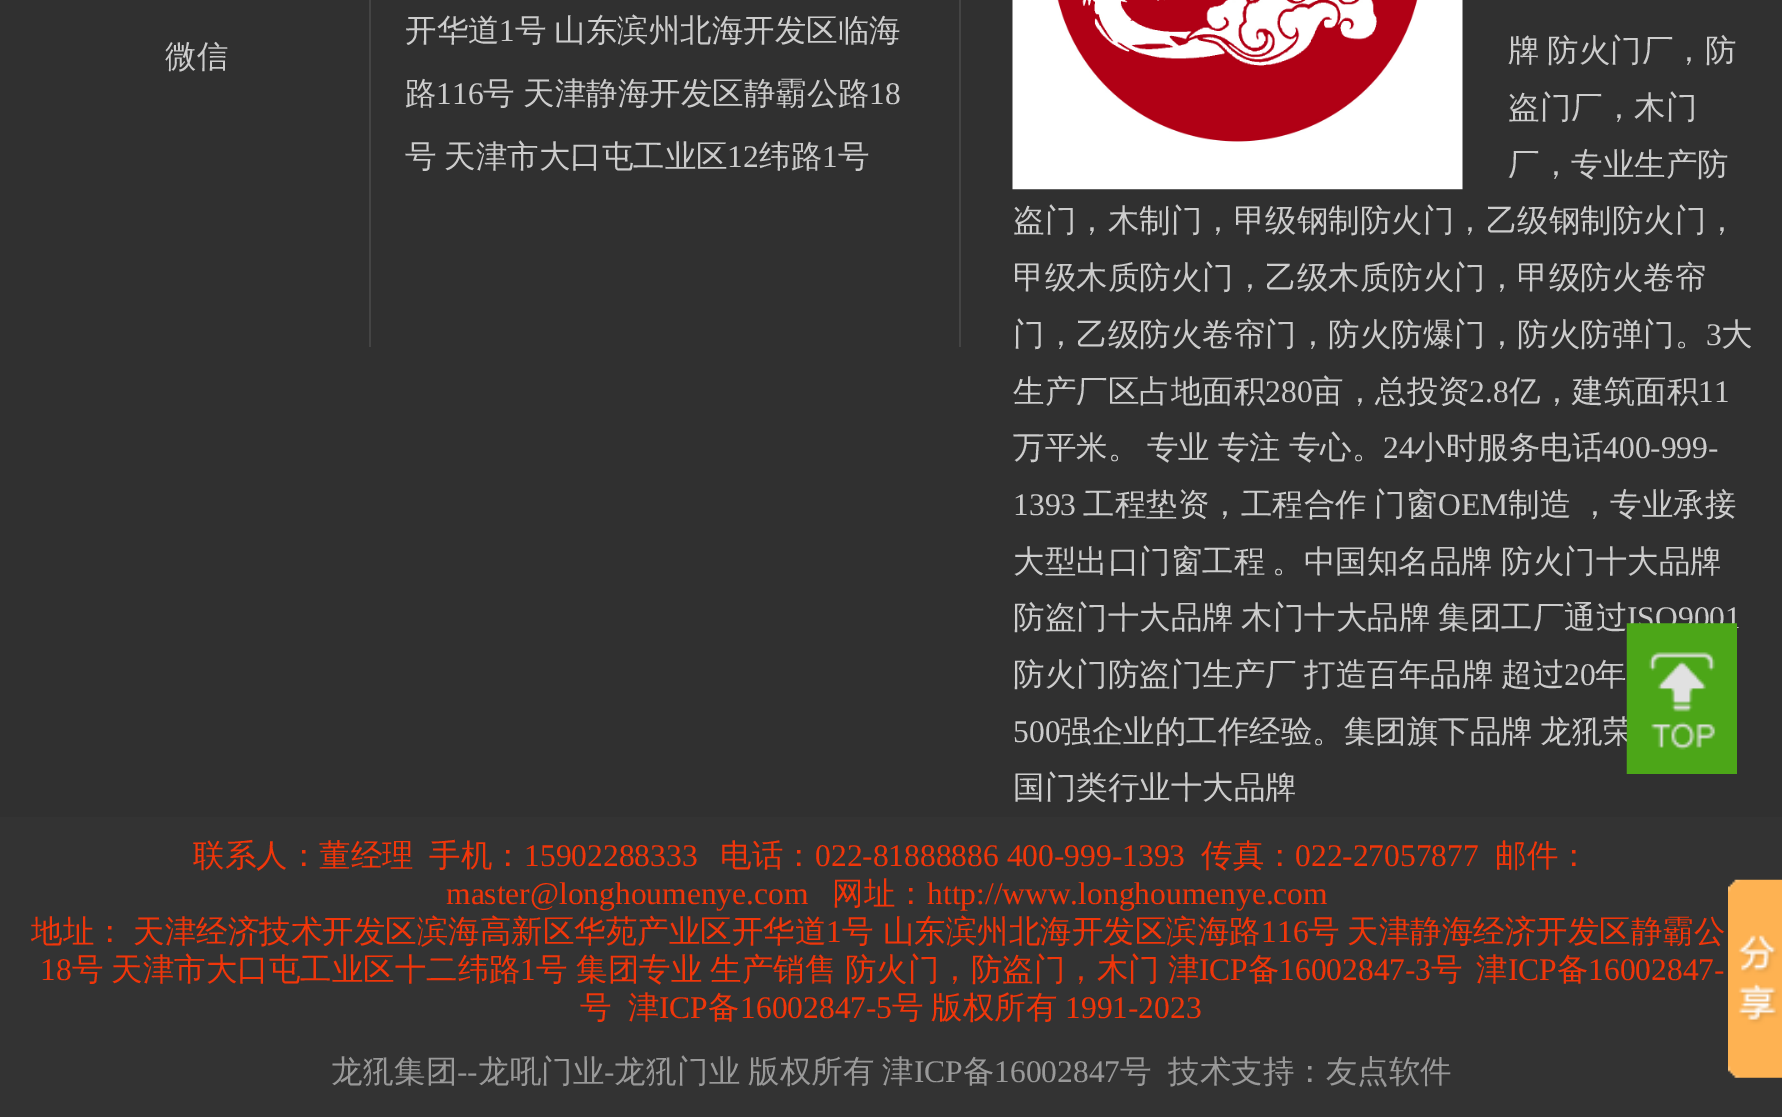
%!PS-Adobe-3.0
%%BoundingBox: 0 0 1782 1117
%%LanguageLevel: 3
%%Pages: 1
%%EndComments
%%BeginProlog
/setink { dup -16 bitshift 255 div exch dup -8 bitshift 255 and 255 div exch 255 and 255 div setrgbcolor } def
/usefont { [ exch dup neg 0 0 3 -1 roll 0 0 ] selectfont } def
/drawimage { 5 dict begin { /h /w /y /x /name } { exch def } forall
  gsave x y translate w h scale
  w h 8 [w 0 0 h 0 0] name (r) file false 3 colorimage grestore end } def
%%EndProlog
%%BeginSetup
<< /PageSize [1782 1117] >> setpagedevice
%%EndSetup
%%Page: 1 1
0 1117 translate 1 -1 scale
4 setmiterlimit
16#303030 setink
0 0 1782 1117 rectfill
/WenQuanYiZenHei-Medium 31.5 usefont
16#CCCCCC setink
165 67 moveto (微信) show
16#444444 setink
369 0 2 347 rectfill
16#CCCCCC setink
405 41 moveto (开华道) show
/LiberationSerif-Regular 31.5 usefont
499 41 moveto (1) show
/WenQuanYiZenHei-Medium 31.5 usefont
[
    [(号) 515 41]
    [(山东滨州北海开发区临海) 554 41]
    [(路) 405 104]
] { aload pop moveto show } forall
/LiberationSerif-Regular 31.5 usefont
436 104 moveto (116) show
/WenQuanYiZenHei-Medium 31.5 usefont
483 104 moveto (号) show
523 104 moveto (天津静海开发区静霸公路) show
/LiberationSerif-Regular 31.5 usefont
869 104 moveto (18) show
/WenQuanYiZenHei-Medium 31.5 usefont
405 167 moveto (号) show
444 167 moveto (天津市大口屯工业区) show
/LiberationSerif-Regular 31.5 usefont
727 167 moveto (12) show
/WenQuanYiZenHei-Medium 31.5 usefont
759 167 moveto (纬路) show
/LiberationSerif-Regular 31.5 usefont
822 167 moveto (1) show
/WenQuanYiZenHei-Medium 31.5 usefont
838 167 moveto (号) show
16#444444 setink
959 0 2 347 rectfill
(img1.raw) 1012 0 451 190 drawimage
16#CCCCCC setink
1508 61 moveto -1.5 0 32 (牌 防火门厂，防) widthshow
[
    [(盗门厂，木门) 1508 118]
    [(厂，专业生产防) 1508 175]
    [(盗门，木制门，甲级钢制防火门，乙级钢制防火门，) 1013 231]
    [(甲级木质防火门，乙级木质防火门，甲级防火卷帘) 1013 288]
    [(门，乙级防火卷帘门，防火防爆门，防火防弹门。) 1013 345]
] { aload pop moveto show } forall
/LiberationSerif-Regular 31.5 usefont
1706 345 moveto (3) show
/WenQuanYiZenHei-Medium 31.5 usefont
1721 345 moveto (大) show
1013 402 moveto (生产厂区占地面积) show
/LiberationSerif-Regular 31.5 usefont
1265 402 moveto (280) show
/WenQuanYiZenHei-Medium 31.5 usefont
1312 402 moveto (亩，总投资) show
/LiberationSerif-Regular 31.5 usefont
1469 402 moveto (2.8) show
/WenQuanYiZenHei-Medium 31.5 usefont
1509 402 moveto (亿，建筑面积) show
/LiberationSerif-Regular 31.5 usefont
1698 402 moveto (11) show
/WenQuanYiZenHei-Medium 31.5 usefont
1013 458 moveto -1.5 0 32 (万平米。 专业 专注 专心。) widthshow
/LiberationSerif-Regular 31.5 usefont
1383 458 moveto (24) show
/WenQuanYiZenHei-Medium 31.5 usefont
1414 458 moveto (小时服务电话) show
/LiberationSerif-Regular 31.5 usefont
1603 458 moveto (400-999-) show
1013 515 moveto (1393) show
/WenQuanYiZenHei-Medium 31.5 usefont
1083 515 moveto -1.5 0 32 (工程垫资，工程合作 门窗) widthshow
/LiberationSerif-Regular 31.5 usefont
1438 515 moveto (OEM) show
/WenQuanYiZenHei-Medium 31.5 usefont
1508 515 moveto -1.5 0 32 (制造 ，专业承接) widthshow
[
    [(大型出口门窗工程) 1013 572]
    [(。中国知名品牌) 1272 572]
    [(防火门十大品牌) 1501 572]
    [(防盗门十大品牌) 1013 628]
    [(木门十大品牌) 1241 628]
    [(集团工厂通过) 1438 628]
] { aload pop moveto show } forall
/LiberationSerif-Regular 31.5 usefont
1627 628 moveto (ISO9001) show
/WenQuanYiZenHei-Medium 31.5 usefont
1013 685 moveto -1.5 0 32 (防火门防盗门生产厂 打造百年品牌) widthshow
1501 685 moveto (超过) show
/LiberationSerif-Regular 31.5 usefont
1564 685 moveto (20) show
/WenQuanYiZenHei-Medium 31.5 usefont
1595 685 moveto (年) show
/LiberationSerif-Regular 31.5 usefont
1013 742 moveto (500) show
/WenQuanYiZenHei-Medium 31.5 usefont
1060 742 moveto -1.5 0 32 (强企业的工作经验。集团旗下品牌 龙犼荣) widthshow
1013 798 moveto (国门类行业十大品牌) show
(img2.raw) 1626 623 111 151 drawimage
16#333333 setink
0 817 1782 300 rectfill
16#F0360A setink
193 866 moveto (联系人：董经理) show
429 866 moveto (手机：) show
/LiberationSerif-Regular 31.5 usefont
524 866 moveto (15902288333) show
/WenQuanYiZenHei-Medium 31.5 usefont
720 866 moveto (电话：) show
/LiberationSerif-Regular 31.5 usefont
815 866 moveto (022-81888886 400-999-1393) show
/WenQuanYiZenHei-Medium 31.5 usefont
1201 866 moveto (传真：) show
/LiberationSerif-Regular 31.5 usefont
1295 866 moveto (022-27057877) show
/WenQuanYiZenHei-Medium 31.5 usefont
1495 866 moveto (邮件：) show
/LiberationSerif-Regular 31.5 usefont
446 904 moveto (master@longhoumenye.com) show
/WenQuanYiZenHei-Medium 31.5 usefont
832 904 moveto (网址：) show
/LiberationSerif-Regular 31.5 usefont
927 904 moveto (http://www.longhoumenye.com) show
/WenQuanYiZenHei-Medium 31.5 usefont
31 942 moveto -1.5 0 32 (地址： 天津经济技术开发区滨海高新区华苑产业区开华道) widthshow
/LiberationSerif-Regular 31.5 usefont
826 942 moveto (1) show
/WenQuanYiZenHei-Medium 31.5 usefont
842 942 moveto (号 山东滨州北海开发区滨海路) show
/LiberationSerif-Regular 31.5 usefont
1261 942 moveto (116) show
/WenQuanYiZenHei-Medium 31.5 usefont
1308 942 moveto -1.5 0 32 (号 天津静海经济开发区静霸公) widthshow
/LiberationSerif-Regular 31.5 usefont
40 980 moveto (18) show
/WenQuanYiZenHei-Medium 31.5 usefont
72 980 moveto -1.5 0 32 (号 天津市大口屯工业区十二纬路) widthshow
/LiberationSerif-Regular 31.5 usefont
520 980 moveto (1) show
/WenQuanYiZenHei-Medium 31.5 usefont
536 980 moveto (号) show
576 980 moveto -1 0 32 (集团专业 生产销售 防火门，防盗门，木门 津) widthshow
/LiberationSerif-Regular 31.5 usefont
1199 980 moveto (ICP) show
/WenQuanYiZenHei-Medium 31.5 usefont
1248 980 moveto (备) show
/LiberationSerif-Regular 31.5 usefont
1279 980 moveto (16002847-3) show
/WenQuanYiZenHei-Medium 31.5 usefont
1431 980 moveto (号) show
1476 980 moveto (津) show
/LiberationSerif-Regular 31.5 usefont
1508 980 moveto (ICP) show
/WenQuanYiZenHei-Medium 31.5 usefont
1557 980 moveto (备) show
/LiberationSerif-Regular 31.5 usefont
1588 980 moveto (16002847-) show
/WenQuanYiZenHei-Medium 31.5 usefont
580 1018 moveto (号) show
628 1018 moveto (津) show
/LiberationSerif-Regular 31.5 usefont
659 1018 moveto (ICP) show
/WenQuanYiZenHei-Medium 31.5 usefont
708 1018 moveto (备) show
/LiberationSerif-Regular 31.5 usefont
740 1018 moveto (16002847-5) show
/WenQuanYiZenHei-Medium 31.5 usefont
892 1018 moveto (号) show
931 1018 moveto (版权所有) show
/LiberationSerif-Regular 31.5 usefont
1065 1018 moveto (1991-2023) show
/WenQuanYiZenHei-Medium 31.5 usefont
16#999999 setink
331 1082 moveto (龙犼集团) show
/LiberationSerif-Regular 31.5 usefont
457 1082 moveto (--) show
/WenQuanYiZenHei-Medium 31.5 usefont
478 1082 moveto (龙吼门业) show
/LiberationSerif-Regular 31.5 usefont
604 1082 moveto (-) show
/WenQuanYiZenHei-Medium 31.5 usefont
[
    [(龙犼门业) 614 1082]
    [(版权所有) 748 1082]
    [(津) 882 1082]
] { aload pop moveto show } forall
/LiberationSerif-Regular 31.5 usefont
914 1082 moveto (ICP) show
/WenQuanYiZenHei-Medium 31.5 usefont
963 1082 moveto (备) show
/LiberationSerif-Regular 31.5 usefont
994 1082 moveto (16002847) show
/WenQuanYiZenHei-Medium 31.5 usefont
1120 1082 moveto (号) show
1168 1082 moveto (技术支持：友点软件) show
(img3.raw) 1728 879 54 199 drawimage
showpage
%%EOF
